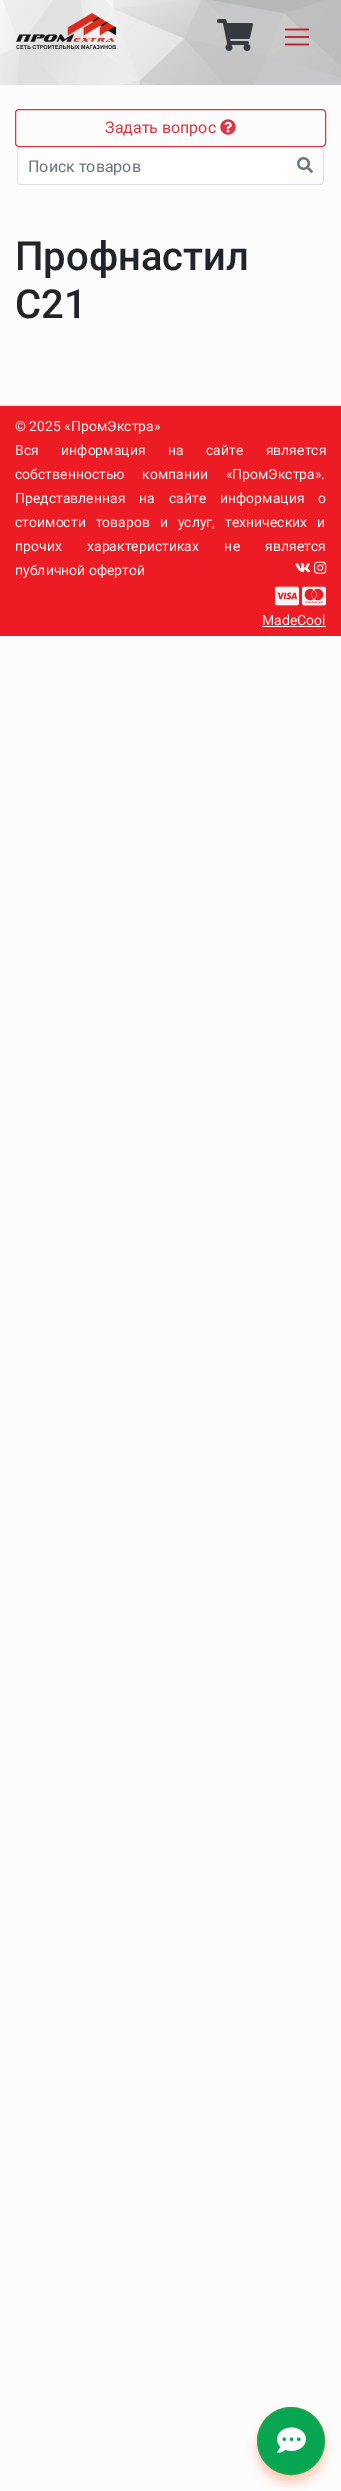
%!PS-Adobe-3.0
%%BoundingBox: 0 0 341 2491
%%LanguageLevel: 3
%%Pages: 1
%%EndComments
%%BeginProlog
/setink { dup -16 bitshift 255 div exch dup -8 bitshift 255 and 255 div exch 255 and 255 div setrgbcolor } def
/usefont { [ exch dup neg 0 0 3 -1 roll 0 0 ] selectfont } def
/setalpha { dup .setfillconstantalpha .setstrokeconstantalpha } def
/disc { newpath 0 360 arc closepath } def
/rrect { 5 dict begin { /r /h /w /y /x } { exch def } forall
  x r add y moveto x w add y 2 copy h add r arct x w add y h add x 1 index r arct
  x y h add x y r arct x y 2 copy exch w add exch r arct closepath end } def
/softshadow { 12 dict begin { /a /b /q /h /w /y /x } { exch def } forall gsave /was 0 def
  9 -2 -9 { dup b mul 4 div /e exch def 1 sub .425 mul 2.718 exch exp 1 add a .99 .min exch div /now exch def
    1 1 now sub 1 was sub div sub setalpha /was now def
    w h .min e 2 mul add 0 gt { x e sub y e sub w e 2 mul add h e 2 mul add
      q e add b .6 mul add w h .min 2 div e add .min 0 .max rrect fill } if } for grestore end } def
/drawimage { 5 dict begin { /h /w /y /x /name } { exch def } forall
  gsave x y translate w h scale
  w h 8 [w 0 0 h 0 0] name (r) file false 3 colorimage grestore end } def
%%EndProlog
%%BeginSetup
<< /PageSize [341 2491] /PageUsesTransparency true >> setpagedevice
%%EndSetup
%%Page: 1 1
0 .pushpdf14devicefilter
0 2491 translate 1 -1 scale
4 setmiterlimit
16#FCFCFC setink
0 0 341 2491 rectfill
(img1.raw) 0 0 341 85 drawimage
(img2.raw) 16 13 100 37 drawimage
(img3.raw) 217 19 36 32 drawimage
(img4.raw) 284 28 26 18 drawimage
16#DC3545 setink
15.5 109.5 310 37 3.5 rrect stroke
/Roboto-Regular 16 usefont
105 133 moveto (Задать вопрос) show
(img5.raw) 220 119 16 16 drawimage
16#FFFFFF setink
21 148 moveto 288 148 lineto 288 184 lineto 21 184 lineto 19.5 184 18 182.5 18 181 curveto 18 151 lineto 18 149.5 19.5 148 21 148 curveto closepath fill
16#DEE2E6 setink
21 147 moveto 288 147 lineto 288 185 lineto 21 185 lineto 19 185 17 183 17 181 curveto 17 151 lineto 17 149 19 147 21 147 curveto closepath 21 148 moveto 288 148 lineto 288 184 lineto 21 184 lineto 19 184 18 183 18 181 curveto 18 151 lineto 18 149 19 148 21 148 curveto closepath eofill
16#6C757D setink
28 172 moveto (Поиск товаров) show
16#DEE2E6 setink
287 147 moveto 320 147 lineto 322 147 324 149 324 151 curveto 324 181 lineto 324 183 322 185 320 185 curveto 287 185 lineto closepath 287 148 moveto 320 148 lineto 321.5 148 323 149.5 323 151 curveto 323 181 lineto 323 182.5 321.5 184 320 184 curveto 287 184 lineto closepath eofill
(img6.raw) 297 157 16 16 drawimage
/Roboto-Medium 40 usefont
16#212529 setink
15 270 moveto (Профнастил) show
15 318 moveto (С21) show
16#F95C18 setink
257 2415 68 68 34 5 0.3 softshadow
16#08A652 setink
291 2441 33.5 disc gsave fill grestore
16#28A745 setink
stroke
(img7.raw) 277 2427 29 26 drawimage
16#ED1C24 setink
0 406 341 230 rectfill
16#DDDDDD setink
0 405 341 1 rectfill
/Roboto-Regular 14 usefont
16#F5F5F5 setink
15 431 moveto (© 2025 «ПромЭкстра») show
15 455 moveto 19 0 32 (Вся информация на сайте является) widthshow
15 479 moveto 14 0 32 (собственностью компании «ПромЭкстра».) widthshow
15 503 moveto 10.5 0 32 (Представленная на сайте информация о) widthshow
15 527 moveto 6.5 0 32 (стоимости товаров и услуг, технических и) widthshow
15 551 moveto 22 0 32 (прочих характеристиках не является) widthshow
15 575 moveto (публичной офертой) show
(img8.raw) 295 563 16 10 drawimage
(img9.raw) 314 561 13 13 drawimage
(img10.raw) 275 586 24 20 drawimage
(img11.raw) 302 586 24 20 drawimage
262 625 moveto (MadeCool) show
262 626 64 1 rectfill
.poppdf14devicefilter showpage
%%EOF
